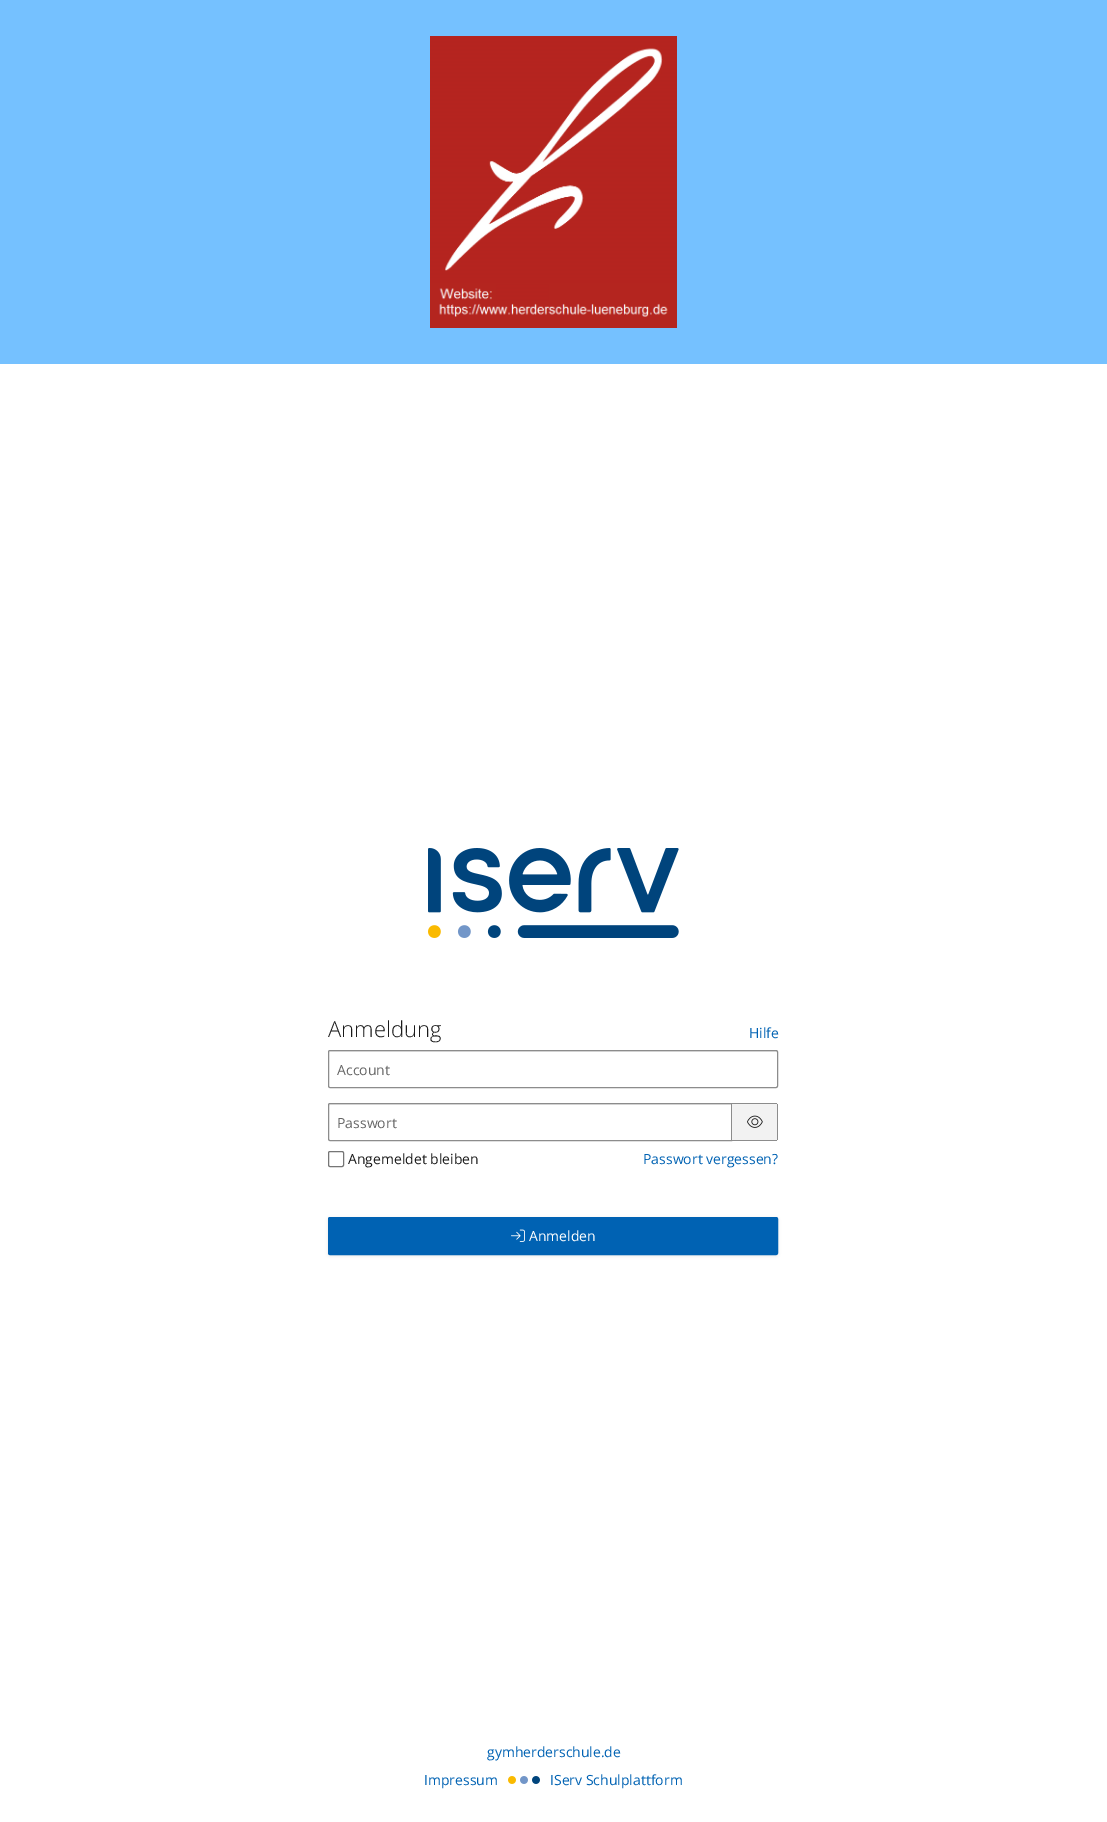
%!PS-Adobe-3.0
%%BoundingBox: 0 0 1107 1822
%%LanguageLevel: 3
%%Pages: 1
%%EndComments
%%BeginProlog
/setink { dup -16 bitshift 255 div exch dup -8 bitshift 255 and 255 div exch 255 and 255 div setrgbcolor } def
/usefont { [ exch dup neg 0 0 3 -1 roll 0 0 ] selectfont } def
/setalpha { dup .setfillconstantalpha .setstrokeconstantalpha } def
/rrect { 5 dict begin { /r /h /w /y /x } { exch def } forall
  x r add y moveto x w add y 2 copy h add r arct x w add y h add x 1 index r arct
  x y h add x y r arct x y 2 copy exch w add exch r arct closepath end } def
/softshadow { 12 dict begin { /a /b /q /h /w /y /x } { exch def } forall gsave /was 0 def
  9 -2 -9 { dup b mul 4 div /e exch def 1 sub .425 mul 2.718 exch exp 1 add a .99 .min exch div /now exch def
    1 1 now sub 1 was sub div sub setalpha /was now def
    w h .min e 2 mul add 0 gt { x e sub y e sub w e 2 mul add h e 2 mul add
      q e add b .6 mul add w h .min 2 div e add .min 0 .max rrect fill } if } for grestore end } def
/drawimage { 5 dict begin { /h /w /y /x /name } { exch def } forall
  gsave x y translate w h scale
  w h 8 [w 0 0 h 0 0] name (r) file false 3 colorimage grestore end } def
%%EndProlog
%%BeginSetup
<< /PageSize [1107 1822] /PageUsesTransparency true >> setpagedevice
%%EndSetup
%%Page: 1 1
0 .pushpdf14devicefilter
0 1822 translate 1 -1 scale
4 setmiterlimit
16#FFFFFF setink
0 0 1107 1822 rectfill
16#75C1FF setink
0 0 1107 364 rectfill
(img1.raw) 430 36 247 292 drawimage
(img2.raw) 428 848 251 90 drawimage
/OpenSans-Light 22 usefont
16#1A1A1A setink
328 1037 moveto (Anmeldung) show
/OpenSans-Regular 14 usefont
16#0062B3 setink
749 1038 moveto (Hilfe) show
16#ECECEC setink
330 1052 moveto 776 1052 lineto 777 1052 777 1052 777 1053 curveto 777 1052 777 1051 776 1051 curveto 330 1051 lineto 329 1052 lineto 329 1053 lineto 329 1052 329 1052 330 1052 curveto closepath fill
16#8C8C8C setink
328.5 1050.5 449 37 1.5 rrect stroke
16#666666 setink
337 1075 moveto (Account) show
16#ECECEC setink
330 1105 moveto 731 1105 lineto 731 1104 lineto 330 1104 lineto 329 1104 329 1105 329 1106 curveto closepath fill
16#8C8C8C setink
330 1103.5 moveto 731.5 1103.5 lineto 731.5 1140.5 lineto 330 1140.5 lineto 329 1140.5 328.5 1140 328.5 1139 curveto 328.5 1105 lineto 328.5 1104 329 1103.5 330 1103.5 curveto closepath stroke
16#666666 setink
337 1128 moveto (Passwort) show
16#F2F2F2 setink
732 1103 moveto 776 1103 lineto 777 1103 778 1104 778 1105 curveto 778 1139 lineto 778 1140 777 1141 776 1141 curveto 732 1141 lineto closepath fill
[
    [732 1103 45 1 16#8C8C8C]
    [777 1104 1 36 16#8C8C8C]
    [732 1140 45 1 16#8C8C8C]
] { aload pop setink rectfill } forall
(img3.raw) 747 1115 16 13 drawimage
16#767676 setink
328.5 1151.5 15 15 1.5 rrect stroke
16#1A1A1A setink
348 1164 moveto (Angemeldet bleiben) show
16#0062B3 setink
643 1164 moveto (Passwort vergessen?) show
16#000000 setink
328 1218 450 38 2 1.5 0.08 softshadow
16#0062B3 setink
328.5 1217.5 449 37 1.5 rrect gsave fill grestore
stroke
(img4.raw) 511 1229 14 13 drawimage
16#FFFFFF setink
529 1241 moveto (Anmelden) show
16#0062B3 setink
487 1757 moveto (gymherderschule.de) show
424 1785 moveto (Impressum) show
(img5.raw) 508 1776 8 8 drawimage
(img6.raw) 520 1776 8 8 drawimage
(img7.raw) 532 1776 8 8 drawimage
550 1785 moveto (IServ Schulplattform) show
.poppdf14devicefilter showpage
%%EOF
